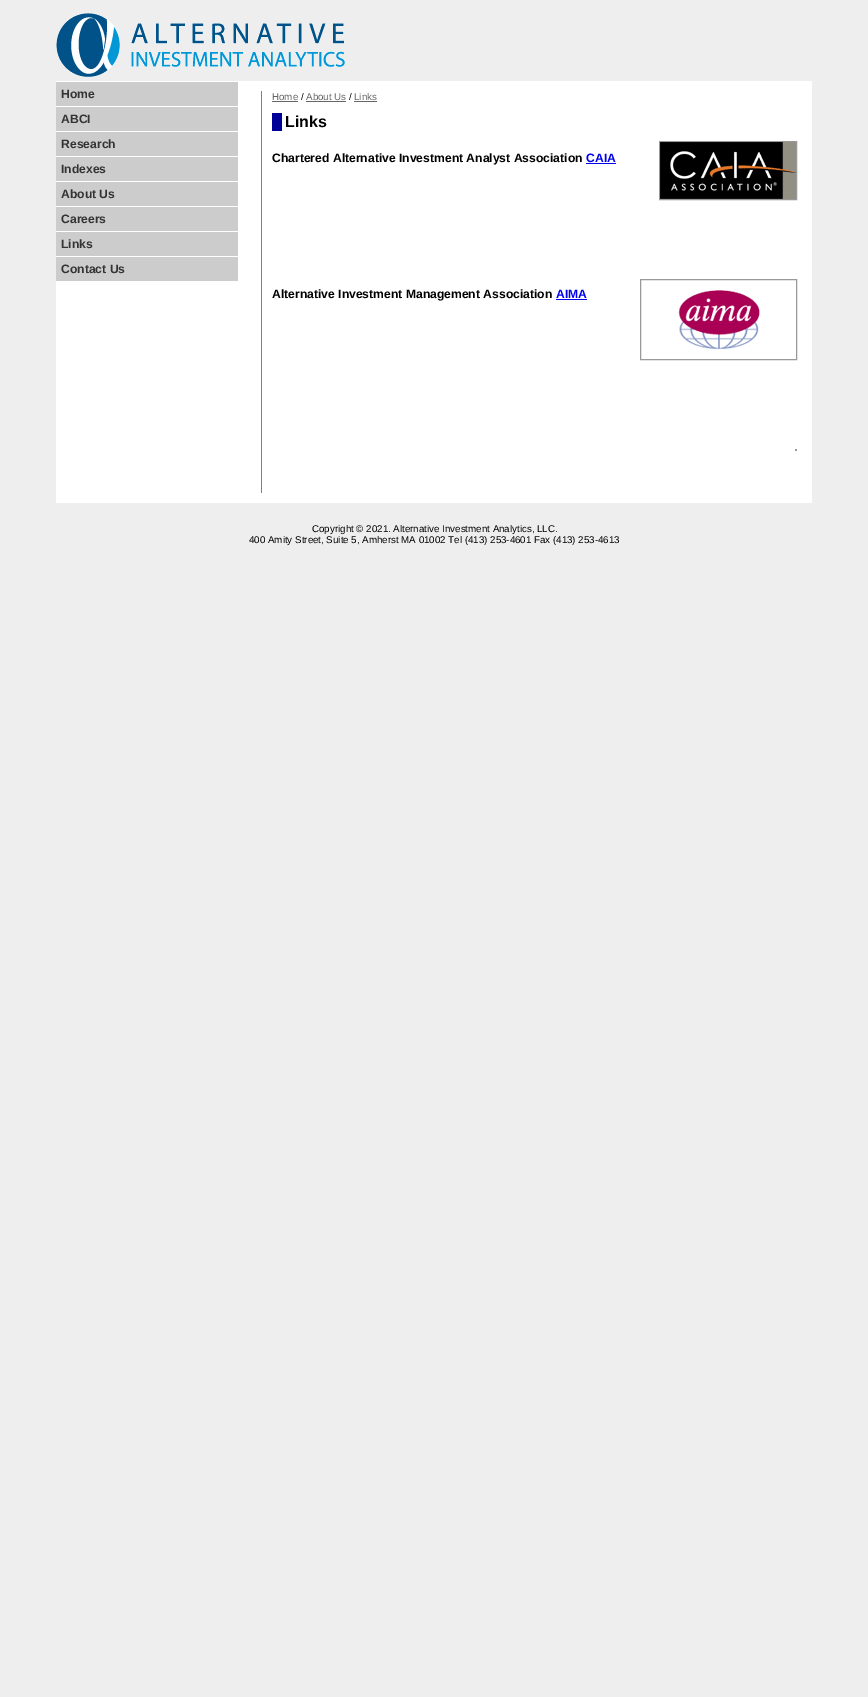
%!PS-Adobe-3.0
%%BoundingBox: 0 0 868 1697
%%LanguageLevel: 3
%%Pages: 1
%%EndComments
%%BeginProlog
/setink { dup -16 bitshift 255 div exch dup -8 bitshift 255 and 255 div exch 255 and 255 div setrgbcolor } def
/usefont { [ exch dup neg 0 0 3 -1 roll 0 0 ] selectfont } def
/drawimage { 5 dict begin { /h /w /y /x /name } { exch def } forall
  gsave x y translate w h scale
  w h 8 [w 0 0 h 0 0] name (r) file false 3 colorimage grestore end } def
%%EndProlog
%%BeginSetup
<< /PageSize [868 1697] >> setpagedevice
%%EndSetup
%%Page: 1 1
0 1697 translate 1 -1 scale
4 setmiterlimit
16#EEEEEE setink
0 0 868 1697 rectfill
(img1.raw) 56 13 289 64 drawimage
16#FFFFFF setink
56 81 756 422 rectfill
16#CCCCCC setink
56 82 182 24 rectfill
/LiberationSans-Bold 12.15 usefont
16#333333 setink
61 98 moveto (Home) show
16#CCCCCC setink
56 107 182 24 rectfill
16#333333 setink
61 123 moveto (ABCI) show
16#CCCCCC setink
56 132 182 24 rectfill
16#333333 setink
61 148 moveto (Research) show
16#CCCCCC setink
56 157 182 24 rectfill
16#333333 setink
61 173 moveto (Indexes) show
16#CCCCCC setink
56 182 182 24 rectfill
16#333333 setink
61 198 moveto (About Us) show
16#CCCCCC setink
56 207 182 24 rectfill
16#333333 setink
61 223 moveto (Careers) show
16#CCCCCC setink
56 232 182 24 rectfill
16#333333 setink
61 248 moveto (Links) show
16#CCCCCC setink
56 257 182 24 rectfill
16#333333 setink
61 273 moveto (Contact Us) show
16#808080 setink
261 91 1 402 rectfill
/LiberationSans-Regular 9.75 usefont
16#666666 setink
272 100 moveto (Home) show
272 101 26 1 rectfill
16#000000 setink
301 100 moveto (/) show
16#666666 setink
306 100 moveto (About Us) show
306 101 40 1 rectfill
16#000000 setink
349 100 moveto (/) show
16#666666 setink
354 100 moveto (Links) show
354 101 23 1 rectfill
16#000099 setink
272 113 10 18 rectfill
/LiberationSans-Bold 16 usefont
16#000000 setink
285 127 moveto (Links) show
/LiberationSans-Bold 12.15 usefont
272 162 moveto (Chartered Alternative Investment Analyst Association) show
16#0000EE setink
586 162 moveto (CAIA) show
586 163 30 1 rectfill
16#999999 setink
659.5 141.5 137 58 rectstroke
(img2.raw) 660 142 136 57 drawimage
16#000000 setink
272 298 moveto (Alternative Investment Management Association) show
16#0000EE setink
556 298 moveto (AIMA) show
556 299 31 1 rectfill
16#999999 setink
640.5 279.5 156 80 rectstroke
(img3.raw) 678 290 82 60 drawimage
795 449 2 2 rectfill
/LiberationSans-Regular 9.75 usefont
16#000000 setink
312 532 moveto (Copyright © 2021. Alternative Investment Analytics, LLC.) show
249 543 moveto (400 Amity Street, Suite 5, Amherst MA 01002 Tel \(413\) 253-4601 Fax \(413\) 253-4613) show
showpage
%%EOF
